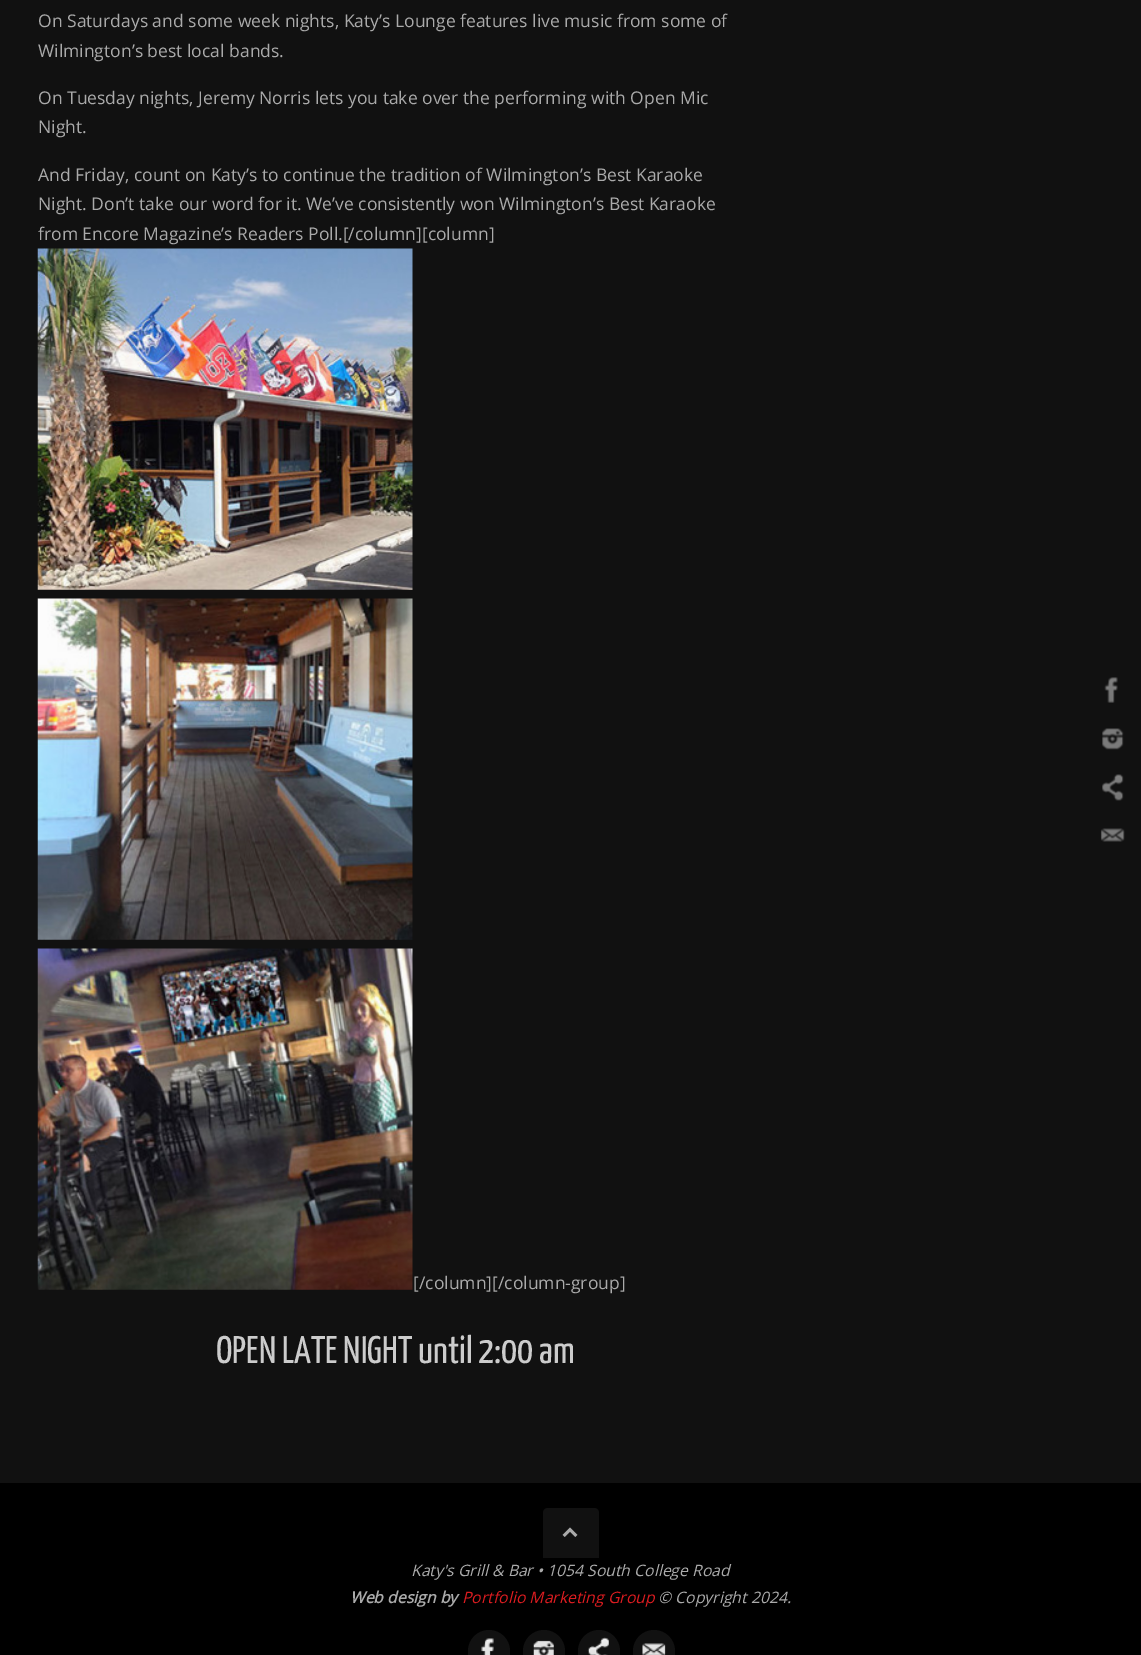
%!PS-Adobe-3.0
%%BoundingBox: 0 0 1141 1655
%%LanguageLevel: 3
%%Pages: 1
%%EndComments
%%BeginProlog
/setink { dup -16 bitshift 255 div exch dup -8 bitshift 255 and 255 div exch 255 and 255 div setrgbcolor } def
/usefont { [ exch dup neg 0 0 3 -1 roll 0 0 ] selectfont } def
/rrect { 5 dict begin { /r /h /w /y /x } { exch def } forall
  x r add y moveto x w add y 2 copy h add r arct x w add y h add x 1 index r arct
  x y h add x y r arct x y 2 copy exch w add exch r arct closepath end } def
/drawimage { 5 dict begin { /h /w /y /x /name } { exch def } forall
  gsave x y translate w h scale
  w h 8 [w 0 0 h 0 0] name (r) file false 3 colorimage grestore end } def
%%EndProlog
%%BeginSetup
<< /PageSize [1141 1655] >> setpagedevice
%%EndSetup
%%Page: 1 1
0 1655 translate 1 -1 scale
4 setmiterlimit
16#111111 setink
0 0 1141 1655 rectfill
/OpenSans-Regular 17.5 usefont
16#AAAAAA setink
[
    [(On Saturdays and some week nights, Katy’s Lounge features live music from some of) 38 27]
    [(Wilmington’s best local bands.) 38 57]
    [(On Tuesday nights, Jeremy Norris lets you take over the performing with Open Mic) 38 104]
    [(Night.) 38 133]
    [(And Friday, count on Katy’s to continue the tradition of Wilmington’s Best Karaoke) 38 181]
    [(Night. Don’t take our word for it. We’ve consistently won Wilmington’s Best Karaoke) 38 210]
    [(from Encore Magazine’s Readers Poll.[/column][column]) 38 240]
] { aload pop moveto show } forall
(img1.raw) 37 248 376 342 drawimage
(img2.raw) 37 598 376 342 drawimage
(img3.raw) 37 948 376 342 drawimage
413 1289 moveto ([/column][/column-group]) show
/YanoneKaffeesatz-Regular 38.5 usefont
16#CCCCCC setink
216 1363 moveto (OPEN LATE NIGHT until 2:00 am) show
16#000000 setink
0 1483 1141 172 rectfill
16#111111 setink
548 1508 moveto 594 1508 lineto 597 1508 599 1510 599 1513 curveto 599 1558 lineto 543 1558 lineto 543 1513 lineto 543 1510 545 1508 548 1508 curveto closepath fill
(img4.raw) 562 1527 16 10 drawimage
/OpenSans-Italic 15.75 usefont
16#AAAAAA setink
411 1576 moveto (Katy's Grill & Bar • 1054 South College Road) show
/OpenSans-BoldItalic 15.75 usefont
350 1603 moveto (Web design by) show
/OpenSans-Italic 15.75 usefont
16#DA1C20 setink
462 1603 moveto (Portfolio Marketing Group) show
16#AAAAAA setink
658 1603 moveto (© Copyright 2024.) show
16#111111 setink
468 1630 42 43 21 rrect fill
(img5.raw) 481 1638 13 17 drawimage
523 1630 42 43 21 rrect fill
(img6.raw) 533 1640 21 15 drawimage
578 1630 42 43 21 rrect fill
(img7.raw) 587 1637 22 18 drawimage
633 1630 42 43 21 rrect fill
(img8.raw) 642 1643 24 12 drawimage
(img9.raw) 1104 677 14 26 drawimage
(img10.raw) 1102 728 22 22 drawimage
(img11.raw) 1102 774 22 27 drawimage
(img12.raw) 1100 828 25 14 drawimage
showpage
%%EOF
